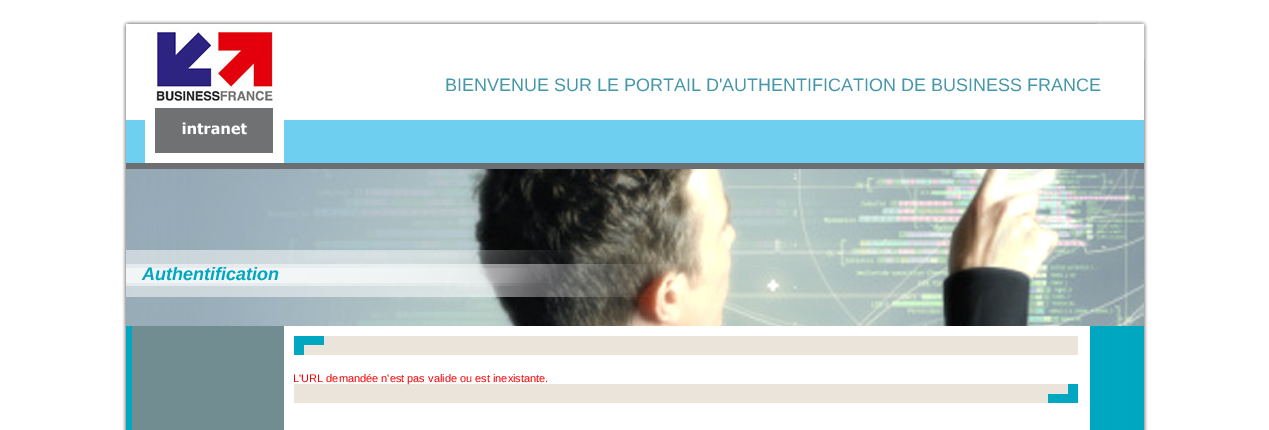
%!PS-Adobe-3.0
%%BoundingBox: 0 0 1269 430
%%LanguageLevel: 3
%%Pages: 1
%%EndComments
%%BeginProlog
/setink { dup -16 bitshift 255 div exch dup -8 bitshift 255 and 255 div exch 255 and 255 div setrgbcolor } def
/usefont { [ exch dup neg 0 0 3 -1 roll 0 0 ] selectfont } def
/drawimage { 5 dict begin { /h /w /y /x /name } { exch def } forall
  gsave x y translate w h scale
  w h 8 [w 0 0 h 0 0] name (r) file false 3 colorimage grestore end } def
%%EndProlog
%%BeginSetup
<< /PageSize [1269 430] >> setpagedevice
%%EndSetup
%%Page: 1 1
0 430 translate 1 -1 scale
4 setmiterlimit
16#FFFFFF setink
0 0 1269 430 rectfill
(img1.raw) 122 169 1026 261 drawimage
(img2.raw) 122 20 1026 149 drawimage
(img3.raw) 145 28 139 135 drawimage
/LiberationSans-Regular 18 usefont
16#4498A9 setink
445 91 moveto (BIENVENUE SUR LE PORTAIL D'AUTHENTIFICATION DE BUSINESS FRANCE) show
(img4.raw) 126 169 1018 157 drawimage
/LiberationSans-BoldItalic 18 usefont
16#00A7C0 setink
142 280 moveto (Authentification) show
(img5.raw) 294 336 784 19 drawimage
(img6.raw) 294 384 784 19 drawimage
/LiberationSans-Regular 11 usefont
16#FF0000 setink
293 382 moveto (L'URL demandée n'est pas valide ou est inexistante.) show
showpage
%%EOF
